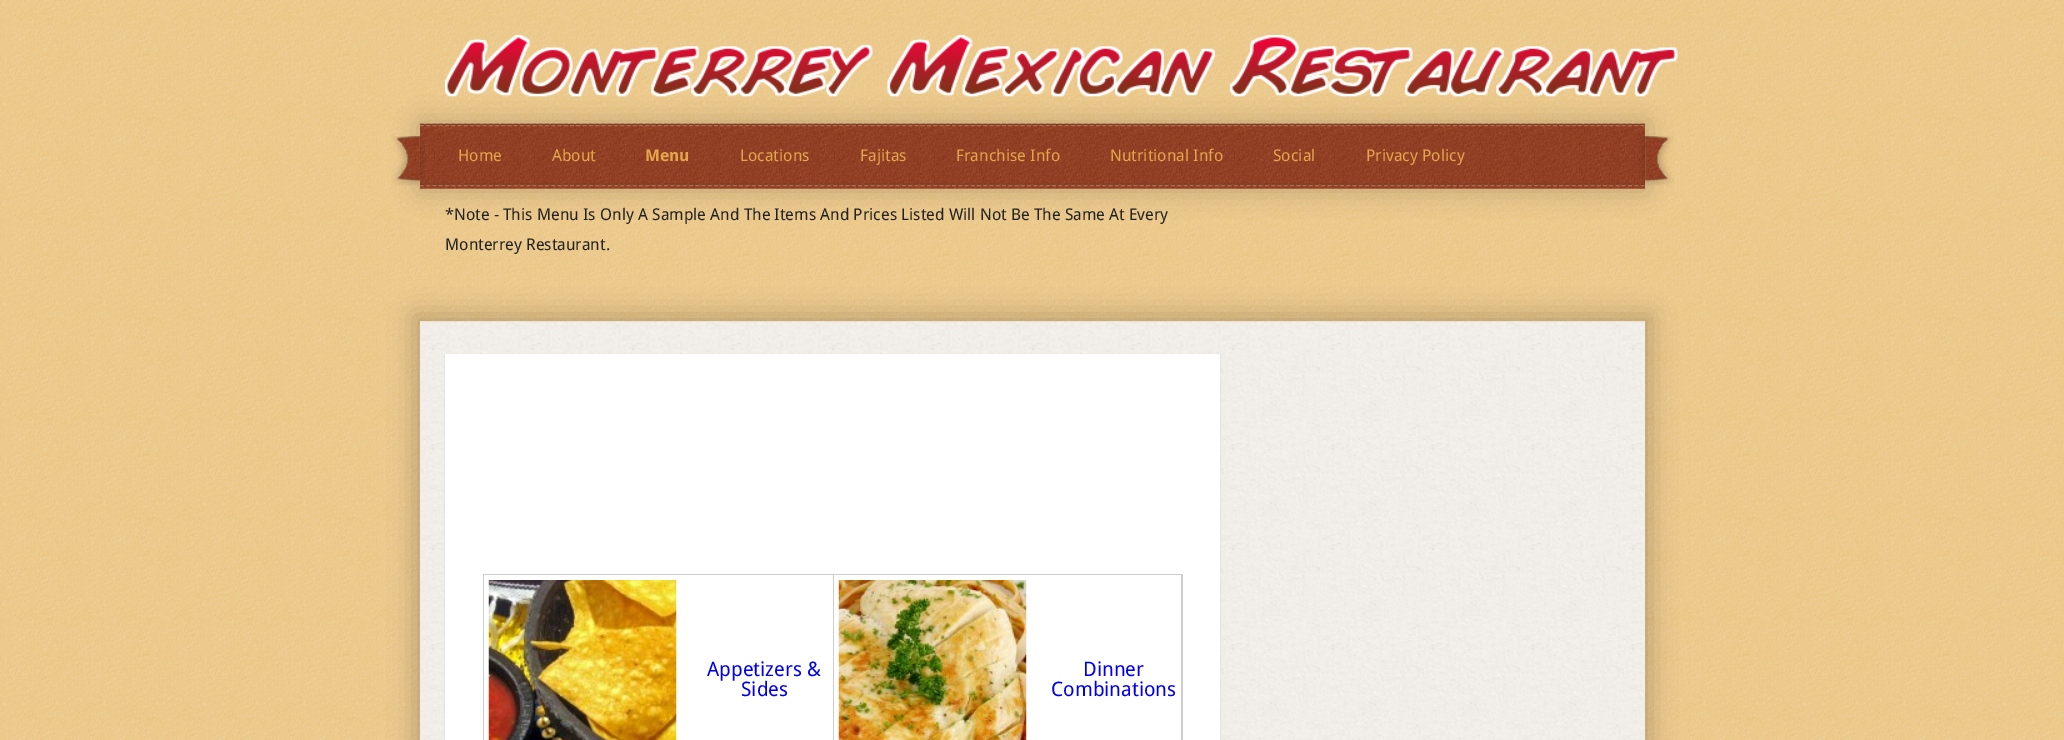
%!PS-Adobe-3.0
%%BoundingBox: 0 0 2064 740
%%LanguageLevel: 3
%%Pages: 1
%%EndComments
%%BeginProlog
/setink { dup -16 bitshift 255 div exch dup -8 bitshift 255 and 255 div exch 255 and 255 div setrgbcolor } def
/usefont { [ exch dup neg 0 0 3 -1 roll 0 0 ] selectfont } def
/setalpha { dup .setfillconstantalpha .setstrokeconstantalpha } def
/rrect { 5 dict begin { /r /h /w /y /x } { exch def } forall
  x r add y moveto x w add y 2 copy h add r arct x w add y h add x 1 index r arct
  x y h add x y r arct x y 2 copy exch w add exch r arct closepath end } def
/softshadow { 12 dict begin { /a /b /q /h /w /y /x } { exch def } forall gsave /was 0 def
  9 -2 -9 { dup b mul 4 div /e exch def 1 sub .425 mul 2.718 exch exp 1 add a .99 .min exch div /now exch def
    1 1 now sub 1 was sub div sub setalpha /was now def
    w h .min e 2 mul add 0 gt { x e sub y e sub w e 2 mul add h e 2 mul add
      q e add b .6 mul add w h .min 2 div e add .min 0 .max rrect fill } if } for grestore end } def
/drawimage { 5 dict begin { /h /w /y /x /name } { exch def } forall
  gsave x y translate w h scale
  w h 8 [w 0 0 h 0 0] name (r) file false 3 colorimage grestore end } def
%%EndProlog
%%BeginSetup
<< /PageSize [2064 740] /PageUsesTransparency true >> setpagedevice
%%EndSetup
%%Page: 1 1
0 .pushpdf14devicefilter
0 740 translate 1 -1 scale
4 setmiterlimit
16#FFFFFF setink
0 0 2064 740 rectfill
(img1.raw) 0 0 2064 740 drawimage
16#000000 setink
419 123 1227 67 0 12.5 0.2 softshadow
(img2.raw) 445 34 1233 63 drawimage
(img3.raw) 420 123 1225 66 drawimage
16#623926 setink
1.2 setlinewidth
[3.75 2.51] 0 setdash
420 124.5 moveto 1645 124.5 lineto stroke
16#B36C4B setink
420 125.5 moveto 1645 125.5 lineto stroke
16#623926 setink
420 184.5 moveto 1645 184.5 lineto stroke
16#B36C4B setink
420 185.5 moveto 1645 185.5 lineto stroke
(img4.raw) 391 136 35 50 drawimage
/DroidSans-Regular 16.25 usefont
16#E5A54A setink
458 161 moveto (Home) show
552 161 moveto (About) show
/DroidSans-Bold 16.25 usefont
645 161 moveto (Menu) show
/DroidSans-Regular 16.25 usefont
[
    [(Locations) 740 161]
    [(Fajitas) 860 161]
    [(Franchise Info) 956 161]
    [(Nutritional Info) 1110 161]
    [(Social) 1273 161]
    [(Privacy Policy) 1366 161]
] { aload pop moveto show } forall
(img5.raw) 1639 136 35 50 drawimage
16#222222 setink
445 220 moveto (*Note - This Menu Is Only A Sample And The Items And Prices Listed Will Not Be The Same At Every) show
445 250 moveto (Monterrey Restaurant.) show
16#000000 setink
414 315 1237 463 0 12.5 0.2 softshadow
(img6.raw) 420 321 1225 419 drawimage
445 355 775 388 0 1 0.1 softshadow
[
    [445 354 775 386 16#FFFFFF]
    [483 574 700 166 16#CDCDCD]
    [484 575 349 165 16#FFFFFF]
] { aload pop setink rectfill } forall
(img7.raw) 488 580 189 160 drawimage
/DroidSans-Regular 20 usefont
16#0000EE setink
707 676 moveto (Appetizers &) show
741 696 moveto (Sides) show
16#FFFFFF setink
834 575 347 165 rectfill
(img8.raw) 838 580 189 160 drawimage
16#0000EE setink
1083 676 moveto (Dinner) show
1051 696 moveto (Combinations) show
.poppdf14devicefilter showpage
%%EOF
